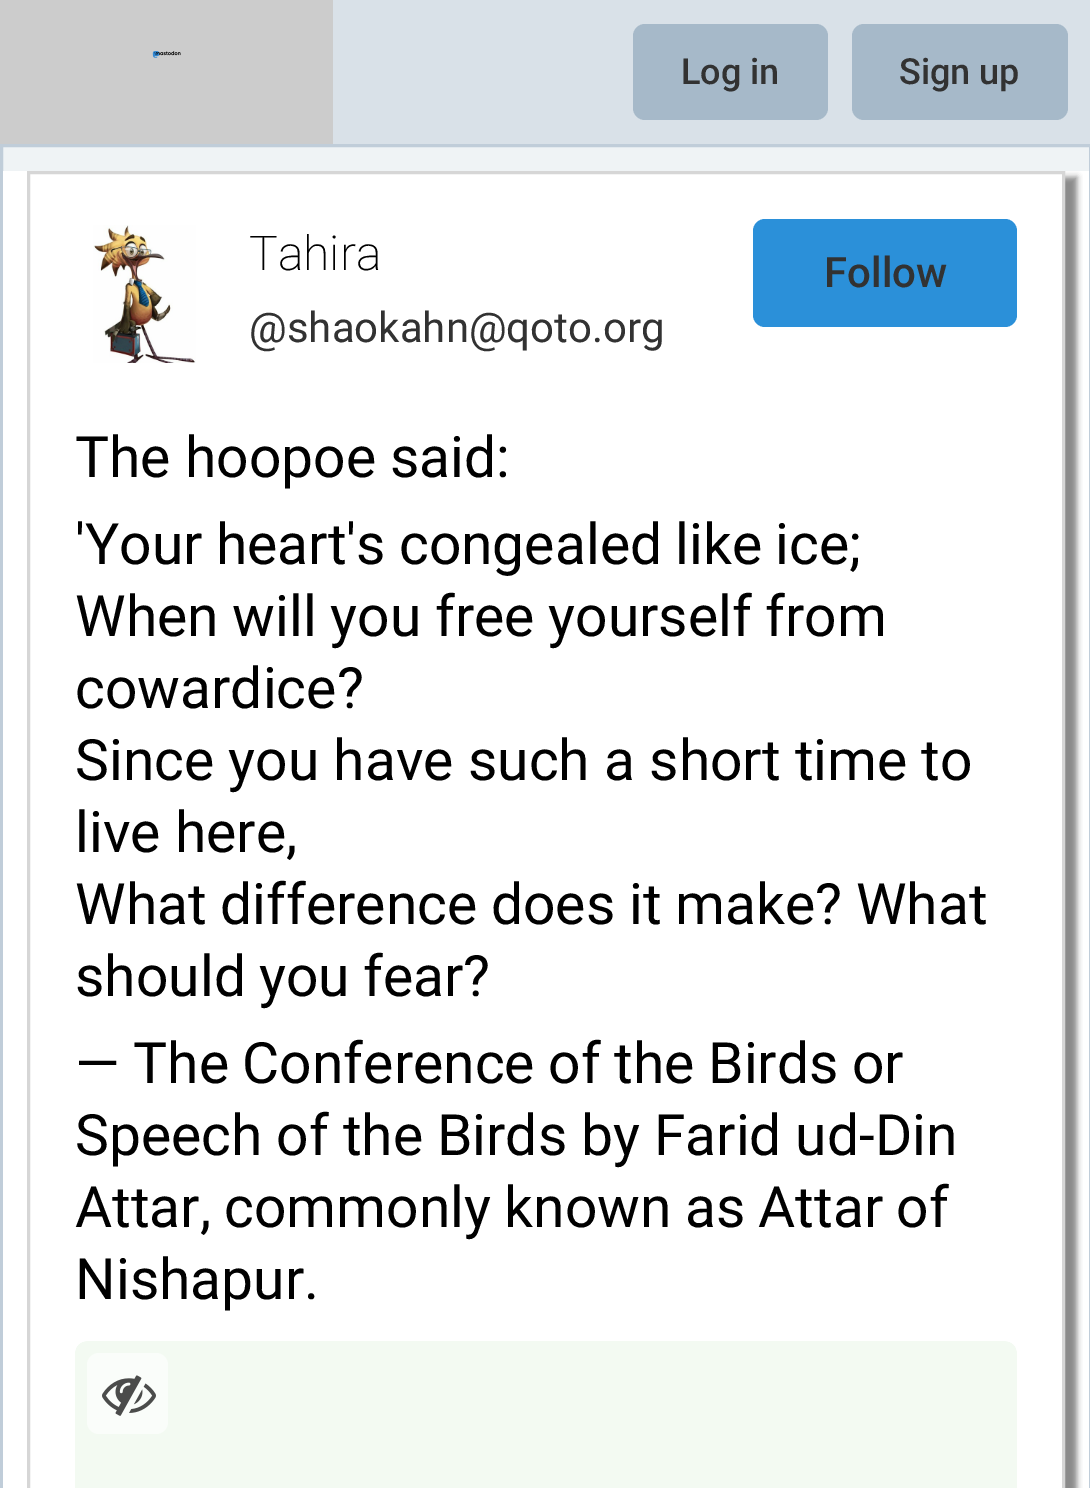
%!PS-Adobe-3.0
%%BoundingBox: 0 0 1090 1488
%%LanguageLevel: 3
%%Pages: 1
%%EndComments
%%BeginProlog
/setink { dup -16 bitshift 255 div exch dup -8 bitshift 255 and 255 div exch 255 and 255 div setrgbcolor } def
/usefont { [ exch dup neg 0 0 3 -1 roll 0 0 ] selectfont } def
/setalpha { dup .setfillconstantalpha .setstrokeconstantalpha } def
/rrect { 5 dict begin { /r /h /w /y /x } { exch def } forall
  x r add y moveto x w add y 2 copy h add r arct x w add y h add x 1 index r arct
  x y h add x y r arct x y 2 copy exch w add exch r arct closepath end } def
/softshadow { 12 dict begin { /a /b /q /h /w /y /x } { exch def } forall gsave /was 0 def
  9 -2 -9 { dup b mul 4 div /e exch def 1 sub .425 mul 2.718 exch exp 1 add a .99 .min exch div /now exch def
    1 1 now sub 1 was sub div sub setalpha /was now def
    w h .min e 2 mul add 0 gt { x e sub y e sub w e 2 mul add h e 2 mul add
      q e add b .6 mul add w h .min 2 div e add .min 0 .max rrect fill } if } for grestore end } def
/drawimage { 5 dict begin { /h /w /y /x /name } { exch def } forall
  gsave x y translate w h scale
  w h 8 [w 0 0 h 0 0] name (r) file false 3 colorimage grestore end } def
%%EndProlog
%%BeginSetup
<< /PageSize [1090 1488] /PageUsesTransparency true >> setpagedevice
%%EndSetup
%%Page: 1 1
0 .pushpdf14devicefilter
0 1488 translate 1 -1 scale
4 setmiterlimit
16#EFF3F5 setink
0 0 1090 1488 rectfill
16#D9E1E8 setink
333 0 757 144 rectfill
16#CCCCCC setink
0 0 333 144 rectfill
(img1.raw) 152 51 29 7 drawimage
16#A6B9C9 setink
633 24 195 96 12 rrect fill
/Roboto-Medium 36 usefont
16#323232 setink
681 84 moveto (Log in) show
16#A6B9C9 setink
852 24 216 96 12 rrect fill
16#323232 setink
899 84 moveto (Sign up) show
16#C0CDD9 setink
3 setlinewidth
1.5 145.5 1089 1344 rectstroke
16#FFFFFF setink
3 171 1086 1317 rectfill
gsave
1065 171 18 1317 rectclip
16#888888 setink
39 177 1038 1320 0 3 1 softshadow
grestore
16#D6D6D6 setink
28.5 172.5 1035 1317 rectstroke
(img2.raw) 93 225 103 138 drawimage
/Roboto-ExtraLight 48 usefont
16#000000 setink
249 270 moveto (Tahira) show
/Roboto-Regular 42 usefont
16#323232 setink
249 342 moveto (@shaokahn@qoto.org) show
16#2B90D9 setink
753 219 264 108 12 rrect fill
/Roboto-Medium 42 usefont
16#323232 setink
824 287 moveto (Follow) show
/Roboto-Regular 57 usefont
16#000000 setink
75 477 moveto (The hoopoe said:) show
75 564 moveto -1 0 32 ('Your heart's congealed like ice;) widthshow
75 636 moveto -0.5 0 32 (When will you free yourself from) widthshow
[
    [(cowardice?) 75 708]
    [(Since you have such a short time to) 75 780]
    [(live here,) 75 852]
] { aload pop moveto show } forall
75 924 moveto -0.5 0 32 (What difference does it make? What) widthshow
75 996 moveto -1 0 32 (should you fear?) widthshow
75 1083 moveto -0.5 0 32 (— The Conference of the Birds or) widthshow
75 1155 moveto -0.25 0 32 (Speech of the Birds by Farid ud-Din) widthshow
75 1227 moveto -1 0 32 (Attar, commonly known as Attar of) widthshow
75 1299 moveto (Nishapur.) show
(img3.raw) 75 1341 942 147 drawimage
16#FAFDFA setink
87 1353 81 81 12 rrect fill
(img4.raw) 102 1375 54 41 drawimage
.poppdf14devicefilter showpage
%%EOF
